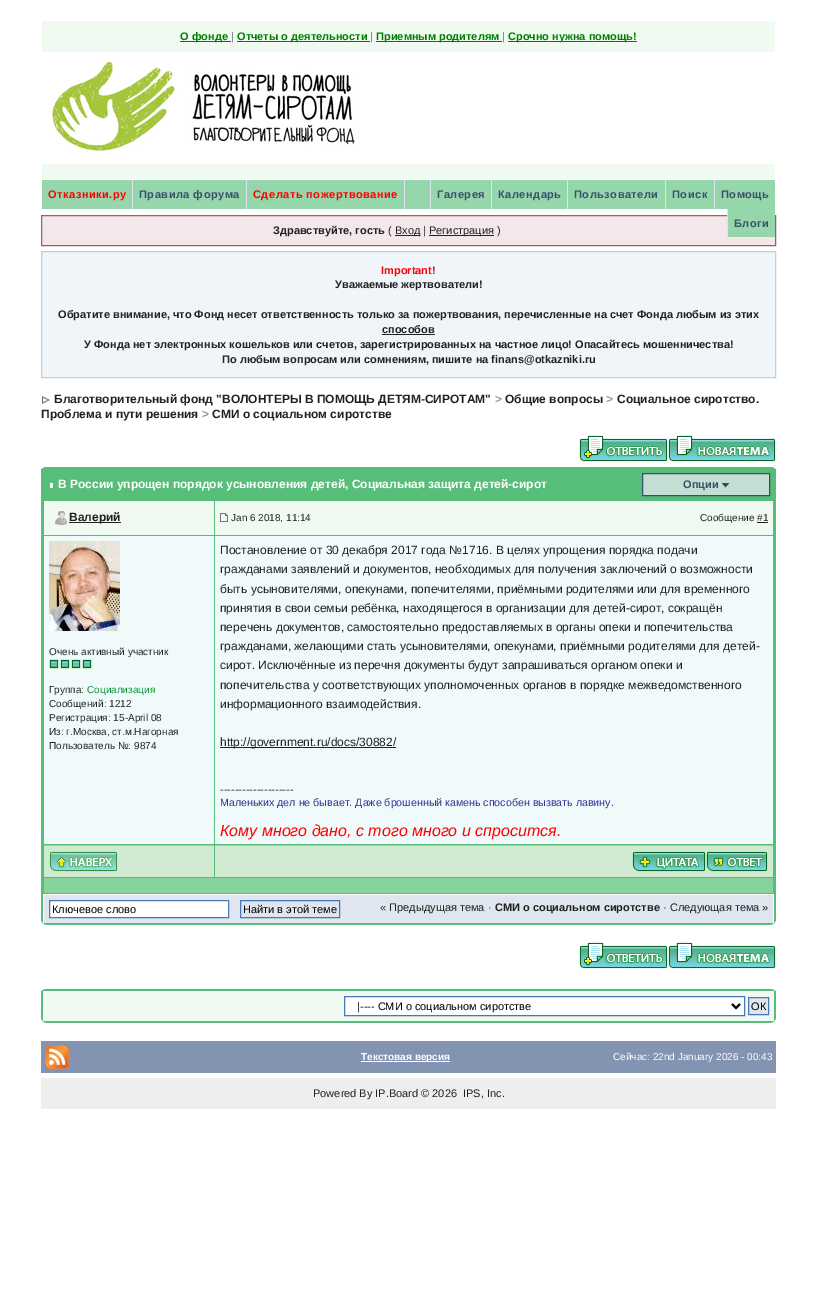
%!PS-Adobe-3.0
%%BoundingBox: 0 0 817 1291
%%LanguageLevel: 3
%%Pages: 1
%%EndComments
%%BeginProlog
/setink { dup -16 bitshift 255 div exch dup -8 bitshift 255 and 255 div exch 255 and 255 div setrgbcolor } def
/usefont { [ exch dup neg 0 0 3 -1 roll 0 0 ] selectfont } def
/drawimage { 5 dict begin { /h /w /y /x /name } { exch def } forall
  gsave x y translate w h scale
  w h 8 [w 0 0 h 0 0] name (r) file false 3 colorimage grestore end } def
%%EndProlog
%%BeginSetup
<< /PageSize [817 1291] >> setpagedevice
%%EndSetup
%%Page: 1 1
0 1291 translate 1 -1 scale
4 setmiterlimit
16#FFFFFF setink
0 0 817 1291 rectfill
16#F0FAF0 setink
42 21 733 158 rectfill
16#008000 setink
180 41 51 1 rectfill
/LiberationSans-Bold 11 usefont
180 40 moveto (О фонде) show
/LiberationSans-Regular 11 usefont
16#646464 setink
231 40 moveto (|) show
16#008000 setink
237 41 133 1 rectfill
/LiberationSans-Bold 11 usefont
237 40 moveto (Отчеты о деятельности) show
/LiberationSans-Regular 11 usefont
16#646464 setink
370 40 moveto (|) show
16#008000 setink
376 41 126 1 rectfill
/LiberationSans-Bold 11 usefont
376 40 moveto (Приемным родителям) show
/LiberationSans-Regular 11 usefont
16#646464 setink
502 40 moveto (|) show
16#008000 setink
508 41 129 1 rectfill
/LiberationSans-Bold 11 usefont
508 40 moveto (Срочно нужна помощь!) show
16#FFFFFF setink
42 52 733 112 rectfill
(img1.raw) 50 59 305 95 drawimage
16#95D6AA setink
42 180 733 29 rectfill
16#DCE3EE setink
132 180 1 29 rectfill
16#FF0000 setink
48 198 moveto 0.5 0 (Отказники.ру) ashow
16#DCE3EE setink
246 180 1 29 rectfill
16#3A4F6C setink
139 198 moveto 0.5 0 (Правила форума) ashow
16#DCE3EE setink
404 180 1 29 rectfill
16#FF0000 setink
253 198 moveto 0.5 0 (Сделать пожертвование) ashow
16#DCE3EE setink
430 180 1 29 rectfill
16#3A4F6C setink
437 198 moveto 0.5 0 (Галерея) ashow
16#DCE3EE setink
491 180 1 29 rectfill
16#3A4F6C setink
498 198 moveto 0.5 0 (Календарь) ashow
16#DCE3EE setink
567 180 1 29 rectfill
16#3A4F6C setink
574 198 moveto 0.5 0 (Пользователи) ashow
16#DCE3EE setink
665 180 1 29 rectfill
16#3A4F6C setink
672 198 moveto 0.5 0 (Поиск) ashow
16#DCE3EE setink
714 180 1 29 rectfill
16#3A4F6C setink
721 198 moveto 0.5 0 (Помощь) ashow
16#F4E7EA setink
41.5 215.5 moveto 775.5 215.5 lineto 775.5 245.5 lineto 41.5 245.5 lineto closepath gsave fill grestore
16#986265 setink
stroke
16#95D6AA setink
728 209 47 28 rectfill
16#DCE3EE setink
727 209 1 28 rectfill
16#3A4F6C setink
734 227 moveto 0.5 0 (Блоги) ashow
16#222222 setink
273 234 moveto (Здравствуйте, гость) show
/LiberationSans-Regular 11 usefont
388 234 moveto (\() show
395 235 25 1 rectfill
395 234 moveto (Вход |) show
429 235 65 1 rectfill
429 234 moveto (Регистрация \)) show
16#F0F5FA setink
41.5 251.5 moveto 775.5 251.5 lineto 775.5 377.5 lineto 41.5 377.5 lineto closepath gsave fill grestore
16#C2CFDF setink
stroke
/LiberationSans-Bold 11 usefont
16#FF0000 setink
381 274 moveto (Important!) show
16#222222 setink
[
    [(Уважаемые жертвователи!) 335 288]
    [(Обратите внимание, что Фонд несет ответственность только за пожертвования, перечисленные на счет Фонда любым из этих) 58 318]
    [(способов) 382 333]
] { aload pop moveto show } forall
382 334 53 1 rectfill
84 348 moveto (У Фонда нет электронных кошельков или счетов, зарегистрированных на частное лицо! Опасайтесь мошенничества!) show
222 363 moveto (По любым вопросам или сомнениям, пишите на finans@otkazniki.ru) show
(img2.raw) 42 396 8 8 drawimage
/LiberationSans-Bold 12 usefont
54 403 moveto (Благотворительный фонд "ВОЛОНТЕРЫ В ПОМОЩЬ ДЕТЯМ-СИРОТАМ") show
16#999999 setink
495 403 moveto (>) show
16#222222 setink
505 403 moveto (Общие вопросы) show
16#999999 setink
606 403 moveto (>) show
16#222222 setink
617 403 moveto (Социальное сиротство.) show
41 418 moveto (Проблема и пути решения) show
16#999999 setink
202 418 moveto (>) show
16#222222 setink
212 418 moveto (СМИ о социальном сиротстве) show
(img3.raw) 579 435 89 27 drawimage
(img4.raw) 668 435 108 27 drawimage
16#57BE79 setink
41 467 735 458 rectfill
(img5.raw) 41 467 4 2 drawimage
(img6.raw) 772 467 4 2 drawimage
16#FFFFFF setink
50 483 3 5 rectfill
58 488 moveto (В России упрощен порядок усыновления детей, Социальная защита детей-сирот) show
16#C3DFD3 setink
642.5 473.5 moveto 769.5 473.5 lineto 769.5 495.5 lineto 642.5 495.5 lineto closepath gsave fill grestore
16#3A4F6C setink
stroke
/LiberationSans-Bold 11 usefont
683 488 moveto (Опции) show
(img7.raw) 722 483 7 5 drawimage
16#F0FAF0 setink
44 501 170 34 rectfill
(img8.raw) 55 511 12 14 drawimage
16#222222 setink
69 522 52 1 rectfill
/LiberationSans-Bold 12 usefont
69 521 moveto (Валерий) show
16#F0FAF0 setink
215 501 558 34 rectfill
(img9.raw) 220 513 8 9 drawimage
/LiberationSans-Regular 10 usefont
16#222222 setink
231 521 moveto (Jan 6 2018, 11:14) show
700 521 moveto (Сообщение #1) show
757 522 11 1 rectfill
16#F0FAFA setink
44 536 170 308 rectfill
(img10.raw) 49 541 71 90 drawimage
16#222222 setink
49 655 moveto (Очень активный участник) show
(img11.raw) 49 659 11 10 drawimage
(img11.raw) 60 659 11 10 drawimage
(img11.raw) 71 659 11 10 drawimage
(img11.raw) 82 659 11 10 drawimage
49 693 moveto (Группа:) show
16#089634 setink
87 693 moveto (Социализация) show
16#222222 setink
[
    [(Сообщений: 1212) 49 707]
    [(Регистрация: 15-April 08) 49 721]
    [(Из: г.Москва, ст.м.Нагорная) 49 735]
    [(Пользователь №: 9874) 49 749]
] { aload pop moveto show } forall
16#F0FAFA setink
215 536 558 308 rectfill
/LiberationSans-Regular 12 usefont
16#222222 setink
[
    [(Постановление от 30 декабря 2017 года №1716. В целях упрощения порядка подачи) 220 554]
    [(гражданами заявлений и документов, необходимых для получения заключений о возможности) 220 573]
    [(быть усыновителями, опекунами, попечителями, приёмными родителями или для временного) 220 593]
    [(принятия в свои семьи ребёнка, находящегося в организации для детей-сирот, сокращён) 220 612]
    [(перечень документов, самостоятельно предоставляемых в органы опеки и попечительства) 220 631]
    [(гражданами, желающими стать усыновителями, опекунами, приёмными родителями для детей-) 220 650]
    [(сирот. Исключённые из перечня документы будут запрашиваться органом опеки и) 220 669]
    [(попечительства у соответствующих уполномоченных органов в порядке межведомственного) 220 689]
    [(информационного взаимодействия.) 220 708]
] { aload pop moveto show } forall
220 747 176 1 rectfill
220 746 moveto (http://government.ru/docs/30882/) show
/LiberationSans-Regular 11 usefont
220 793 moveto (--------------------) show
/LiberationSans-Regular 10.65 usefont
16#333399 setink
220 806 moveto (Маленьких дел не бывает. Даже брошенный камень способен вызвать лавину.) show
/LiberationSans-Italic 16 usefont
16#FF0000 setink
220 836 moveto (Кому много дано, с того много и спросится.) show
16#D1EBD3 setink
44 846 170 31 rectfill
16#88D39C setink
44 845 170 1 rectfill
(img12.raw) 49 851 69 21 drawimage
16#D1EBD3 setink
215 846 558 31 rectfill
16#88D39C setink
215 845 558 1 rectfill
(img13.raw) 632 851 74 21 drawimage
(img14.raw) 706 851 62 21 drawimage
[
    [44 878 729 15 16#88D39C]
    [44 895 729 28 16#DFE6EF]
    [43 894 731 1 16#FFFFFF]
    [773 894 1 29 16#FFFFFF]
    [43 894 1 29 16#FFFFFF]
] { aload pop setink rectfill } forall
49.5 900.5 moveto 228.5 900.5 lineto 228.5 917.5 lineto 49.5 917.5 lineto closepath gsave fill grestore
16#4C77B6 setink
stroke
/LiberationSans-Regular 11 usefont
16#000000 setink
52 913 moveto (Ключевое слово) show
16#4C77B6 setink
240.5 900.5 99 17 rectstroke
16#000000 setink
243 913 moveto (Найти в этой теме) show
16#222222 setink
380 911 moveto (« Предыдущая тема ·) show
/LiberationSans-Bold 11 usefont
495 911 moveto (СМИ о социальном сиротстве) show
/LiberationSans-Regular 11 usefont
663 911 moveto (· Следующая тема ») show
(img15.raw) 41 921 5 4 drawimage
(img16.raw) 771 921 5 4 drawimage
(img3.raw) 579 942 89 27 drawimage
(img4.raw) 668 942 108 27 drawimage
16#57BE79 setink
41 989 735 34 rectfill
(img5.raw) 41 989 4 2 drawimage
(img6.raw) 772 989 4 2 drawimage
16#F0FAF0 setink
43 991 731 30 rectfill
16#FFFFFF setink
344.5 996.5 moveto 744.5 996.5 lineto 744.5 1015.5 lineto 344.5 1015.5 lineto closepath gsave fill grestore
16#4C77B6 setink
stroke
16#000000 setink
2 setlinewidth
732 1004 moveto 736 1008 lineto 740 1004 lineto stroke
357 1010 moveto (|---- СМИ о социальном сиротстве) show
16#DFE6EF setink
748.5 997.5 moveto 768.5 997.5 lineto 768.5 1014.5 lineto 748.5 1014.5 lineto closepath gsave fill grestore
16#4C77B6 setink
1 setlinewidth
stroke
16#000000 setink
751 1010 moveto (ОК) show
(img17.raw) 41 1019 5 4 drawimage
(img18.raw) 771 1019 5 4 drawimage
16#8394B2 setink
41 1041 735 32 rectfill
(img19.raw) 45 1045 24 24 drawimage
16#FFFFFF setink
361 1061 89 1 rectfill
/LiberationSans-Bold 10 usefont
361 1060 moveto (Текстовая версия) show
/LiberationSans-Regular 10 usefont
613 1060 moveto (Сейчас: 22nd January 2026 - 00:43) show
16#EEEEEE setink
41 1078 735 31 rectfill
/LiberationSans-Regular 11 usefont
16#222222 setink
313 1097 moveto (Powered By IP.Board © 2026) show
463 1097 moveto (IPS, Inc.) show
showpage
%%EOF
